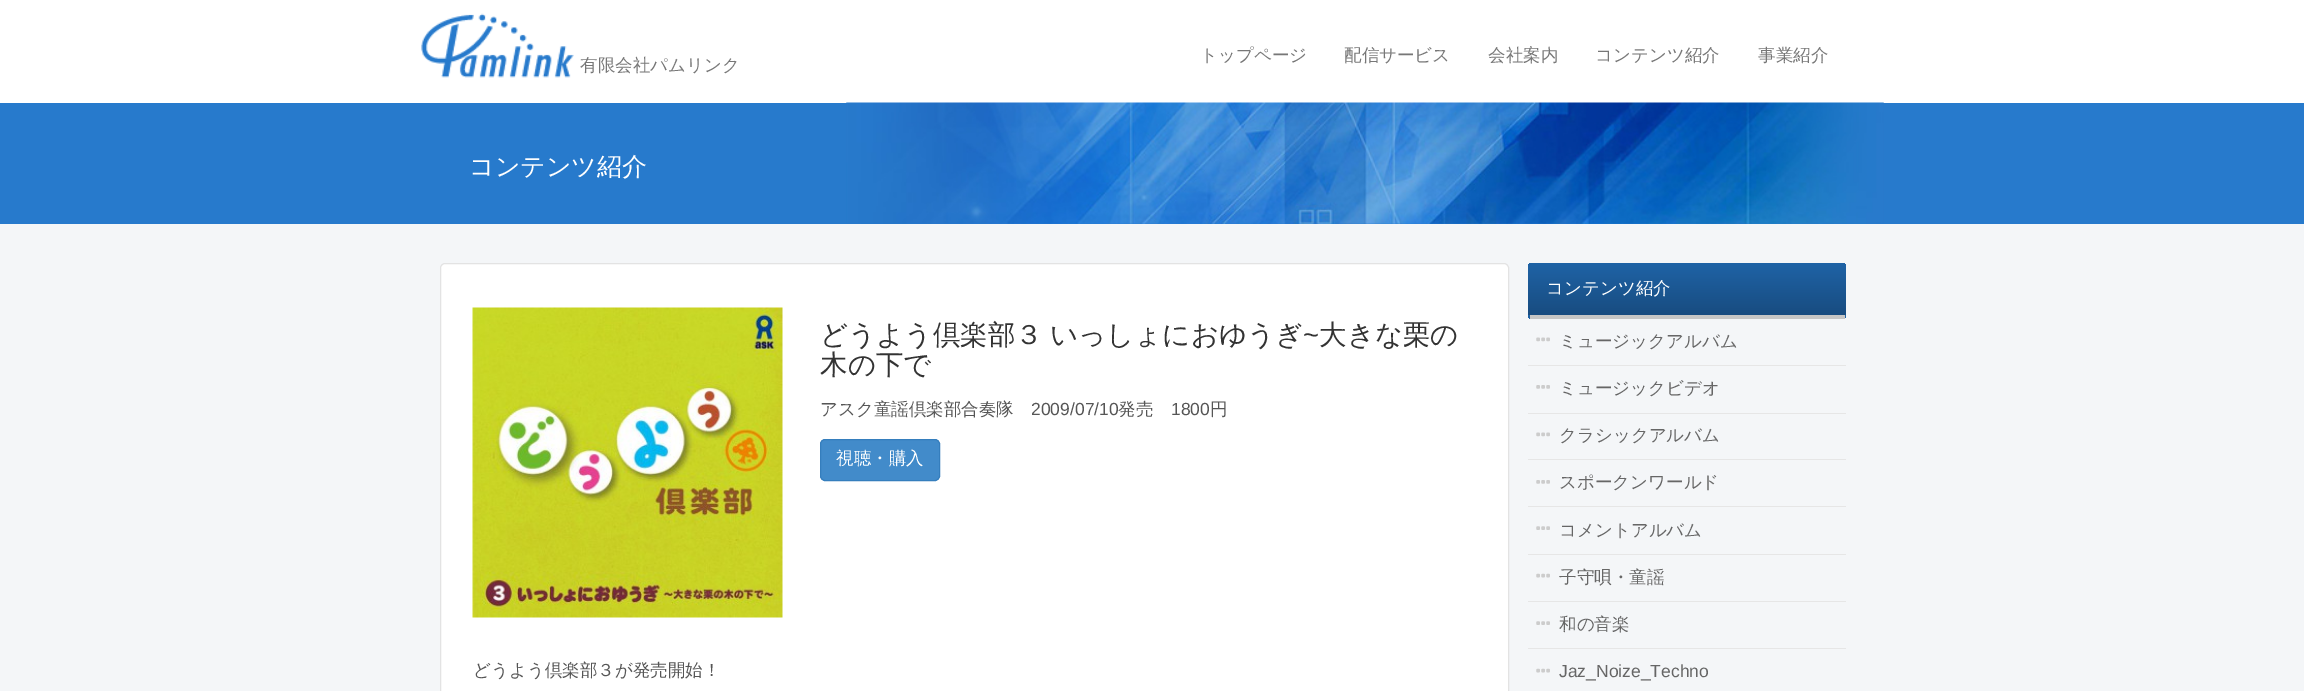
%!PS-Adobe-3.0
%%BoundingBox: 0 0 2304 691
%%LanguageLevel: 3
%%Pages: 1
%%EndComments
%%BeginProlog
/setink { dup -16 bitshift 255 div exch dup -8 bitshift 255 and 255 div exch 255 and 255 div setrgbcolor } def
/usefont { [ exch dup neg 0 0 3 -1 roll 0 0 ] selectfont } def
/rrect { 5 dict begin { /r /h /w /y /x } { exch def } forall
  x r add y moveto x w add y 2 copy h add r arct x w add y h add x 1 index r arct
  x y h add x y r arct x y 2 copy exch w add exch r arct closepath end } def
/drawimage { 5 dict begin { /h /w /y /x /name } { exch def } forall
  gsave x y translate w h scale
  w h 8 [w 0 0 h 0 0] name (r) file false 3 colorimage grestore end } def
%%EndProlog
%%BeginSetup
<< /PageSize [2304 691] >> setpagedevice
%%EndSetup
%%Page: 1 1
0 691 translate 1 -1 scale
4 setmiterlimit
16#FFFFFF setink
0 0 2304 691 rectfill
(img1.raw) 421 13 153 65 drawimage
/WenQuanYiZenHei-Medium 17.5 usefont
16#777777 setink
[
    [(有限会社パムリンク) 580 71]
    [(トップページ) 1200 61]
    [(配信サービス) 1344 61]
    [(会社案内) 1488 61]
    [(コンテンツ紹介) 1595 61]
    [(事業紹介) 1758 61]
] { aload pop moveto show } forall
16#277ACC setink
0 103 2304 121 rectfill
(img2.raw) 846 102 1038 122 drawimage
/WenQuanYiZenHei-Medium 25 usefont
16#FFFFFF setink
469 175 moveto (コンテンツ紹介) show
16#F4F6F8 setink
0 224 2304 467 rectfill
16#FFFFFF setink
440.5 263.5 1068 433 4.5 rrect gsave fill grestore
16#E3E3E3 setink
stroke
(img3.raw) 472 307 311 311 drawimage
/WenQuanYiZenHei-Medium 27.5 usefont
16#333333 setink
820 344 moveto -1 0 32 (どうよう倶楽部３ いっしょにおゆうぎ) widthshow
/LiberationSans-Regular 27.5 usefont
1303 344 moveto (~) show
/WenQuanYiZenHei-Medium 27.5 usefont
1319 344 moveto (大きな栗の) show
820 374 moveto (木の下で) show
/WenQuanYiZenHei-Medium 17.5 usefont
16#565656 setink
820 415 moveto (アスク童謡倶楽部合奏隊) show
/LiberationSans-Regular 17.5 usefont
1031 415 moveto (2009/07/10) show
/WenQuanYiZenHei-Medium 17.5 usefont
1118 415 moveto (発売) show
/LiberationSans-Regular 17.5 usefont
1171 415 moveto (1800) show
/WenQuanYiZenHei-Medium 17.5 usefont
1210 415 moveto (円) show
16#428BCA setink
820.5 439.5 119 41 4.5 rrect gsave fill grestore
16#357EBD setink
stroke
16#FFFFFF setink
836 464 moveto (視聴・購入) show
16#565656 setink
473 676 moveto (どうよう倶楽部３が発売開始！) show
gsave 1532 263 moveto 1842 263 lineto 1844 263 1846 265 1846 267 curveto 1846 315 lineto 1528 315 lineto 1528 267 lineto 1528 265 1530 263 1532 263 curveto closepath clip newpath
<< /ShadingType 2 /ColorSpace /DeviceRGB /Coords [1687 263 1687 315] /Extend [true true] /Function << /FunctionType 2 /Domain [0 1] /C0 [0.122 0.388 0.651] /C1 [0.094 0.298 0.502] /N 1 >> >> shfill grestore
gsave 1528 315 moveto 1846 315 lineto 1846 317 1844 319 1842 319 curveto 1532 319 lineto 1530 319 1528 317 1528 315 curveto closepath clip newpath
<< /ShadingType 2 /ColorSpace /DeviceRGB /Coords [1687 315 1687 368] /Extend [true true] /Function << /FunctionType 2 /Domain [0 1] /C0 [0.122 0.388 0.651] /C1 [0.094 0.298 0.502] /N 1 >> >> shfill grestore
16#C6C6C6 setink
1530 315 315 4 rectfill
16#FFFFFF setink
1546 294 moveto (コンテンツ紹介) show
16#E6E6E6 setink
1528 365 318 1 rectfill
(img4.raw) 1536 337 14 5 drawimage
16#666666 setink
1559 347 moveto (ミュージックアルバム) show
16#E6E6E6 setink
1528 413 318 1 rectfill
(img5.raw) 1536 385 14 4 drawimage
16#666666 setink
1559 394 moveto (ミュージックビデオ) show
16#E6E6E6 setink
1528 459 318 1 rectfill
(img4.raw) 1536 432 14 5 drawimage
16#666666 setink
1559 441 moveto (クラシックアルバム) show
16#E6E6E6 setink
1528 506 318 1 rectfill
(img5.raw) 1536 480 14 4 drawimage
16#666666 setink
1559 488 moveto (スポークンワールド) show
16#E6E6E6 setink
1528 554 318 1 rectfill
(img6.raw) 1536 526 14 4 drawimage
16#666666 setink
1559 536 moveto (コメントアルバム) show
16#E6E6E6 setink
1528 601 318 1 rectfill
(img7.raw) 1536 573 14 5 drawimage
16#666666 setink
1559 583 moveto (子守唄・童謡) show
16#E6E6E6 setink
1528 648 318 1 rectfill
(img6.raw) 1536 621 14 4 drawimage
16#666666 setink
1559 630 moveto (和の音楽) show
(img7.raw) 1536 668 14 5 drawimage
/LiberationSans-Regular 17.5 usefont
1559 677 moveto (Jaz_Noize_Techno) show
showpage
%%EOF
